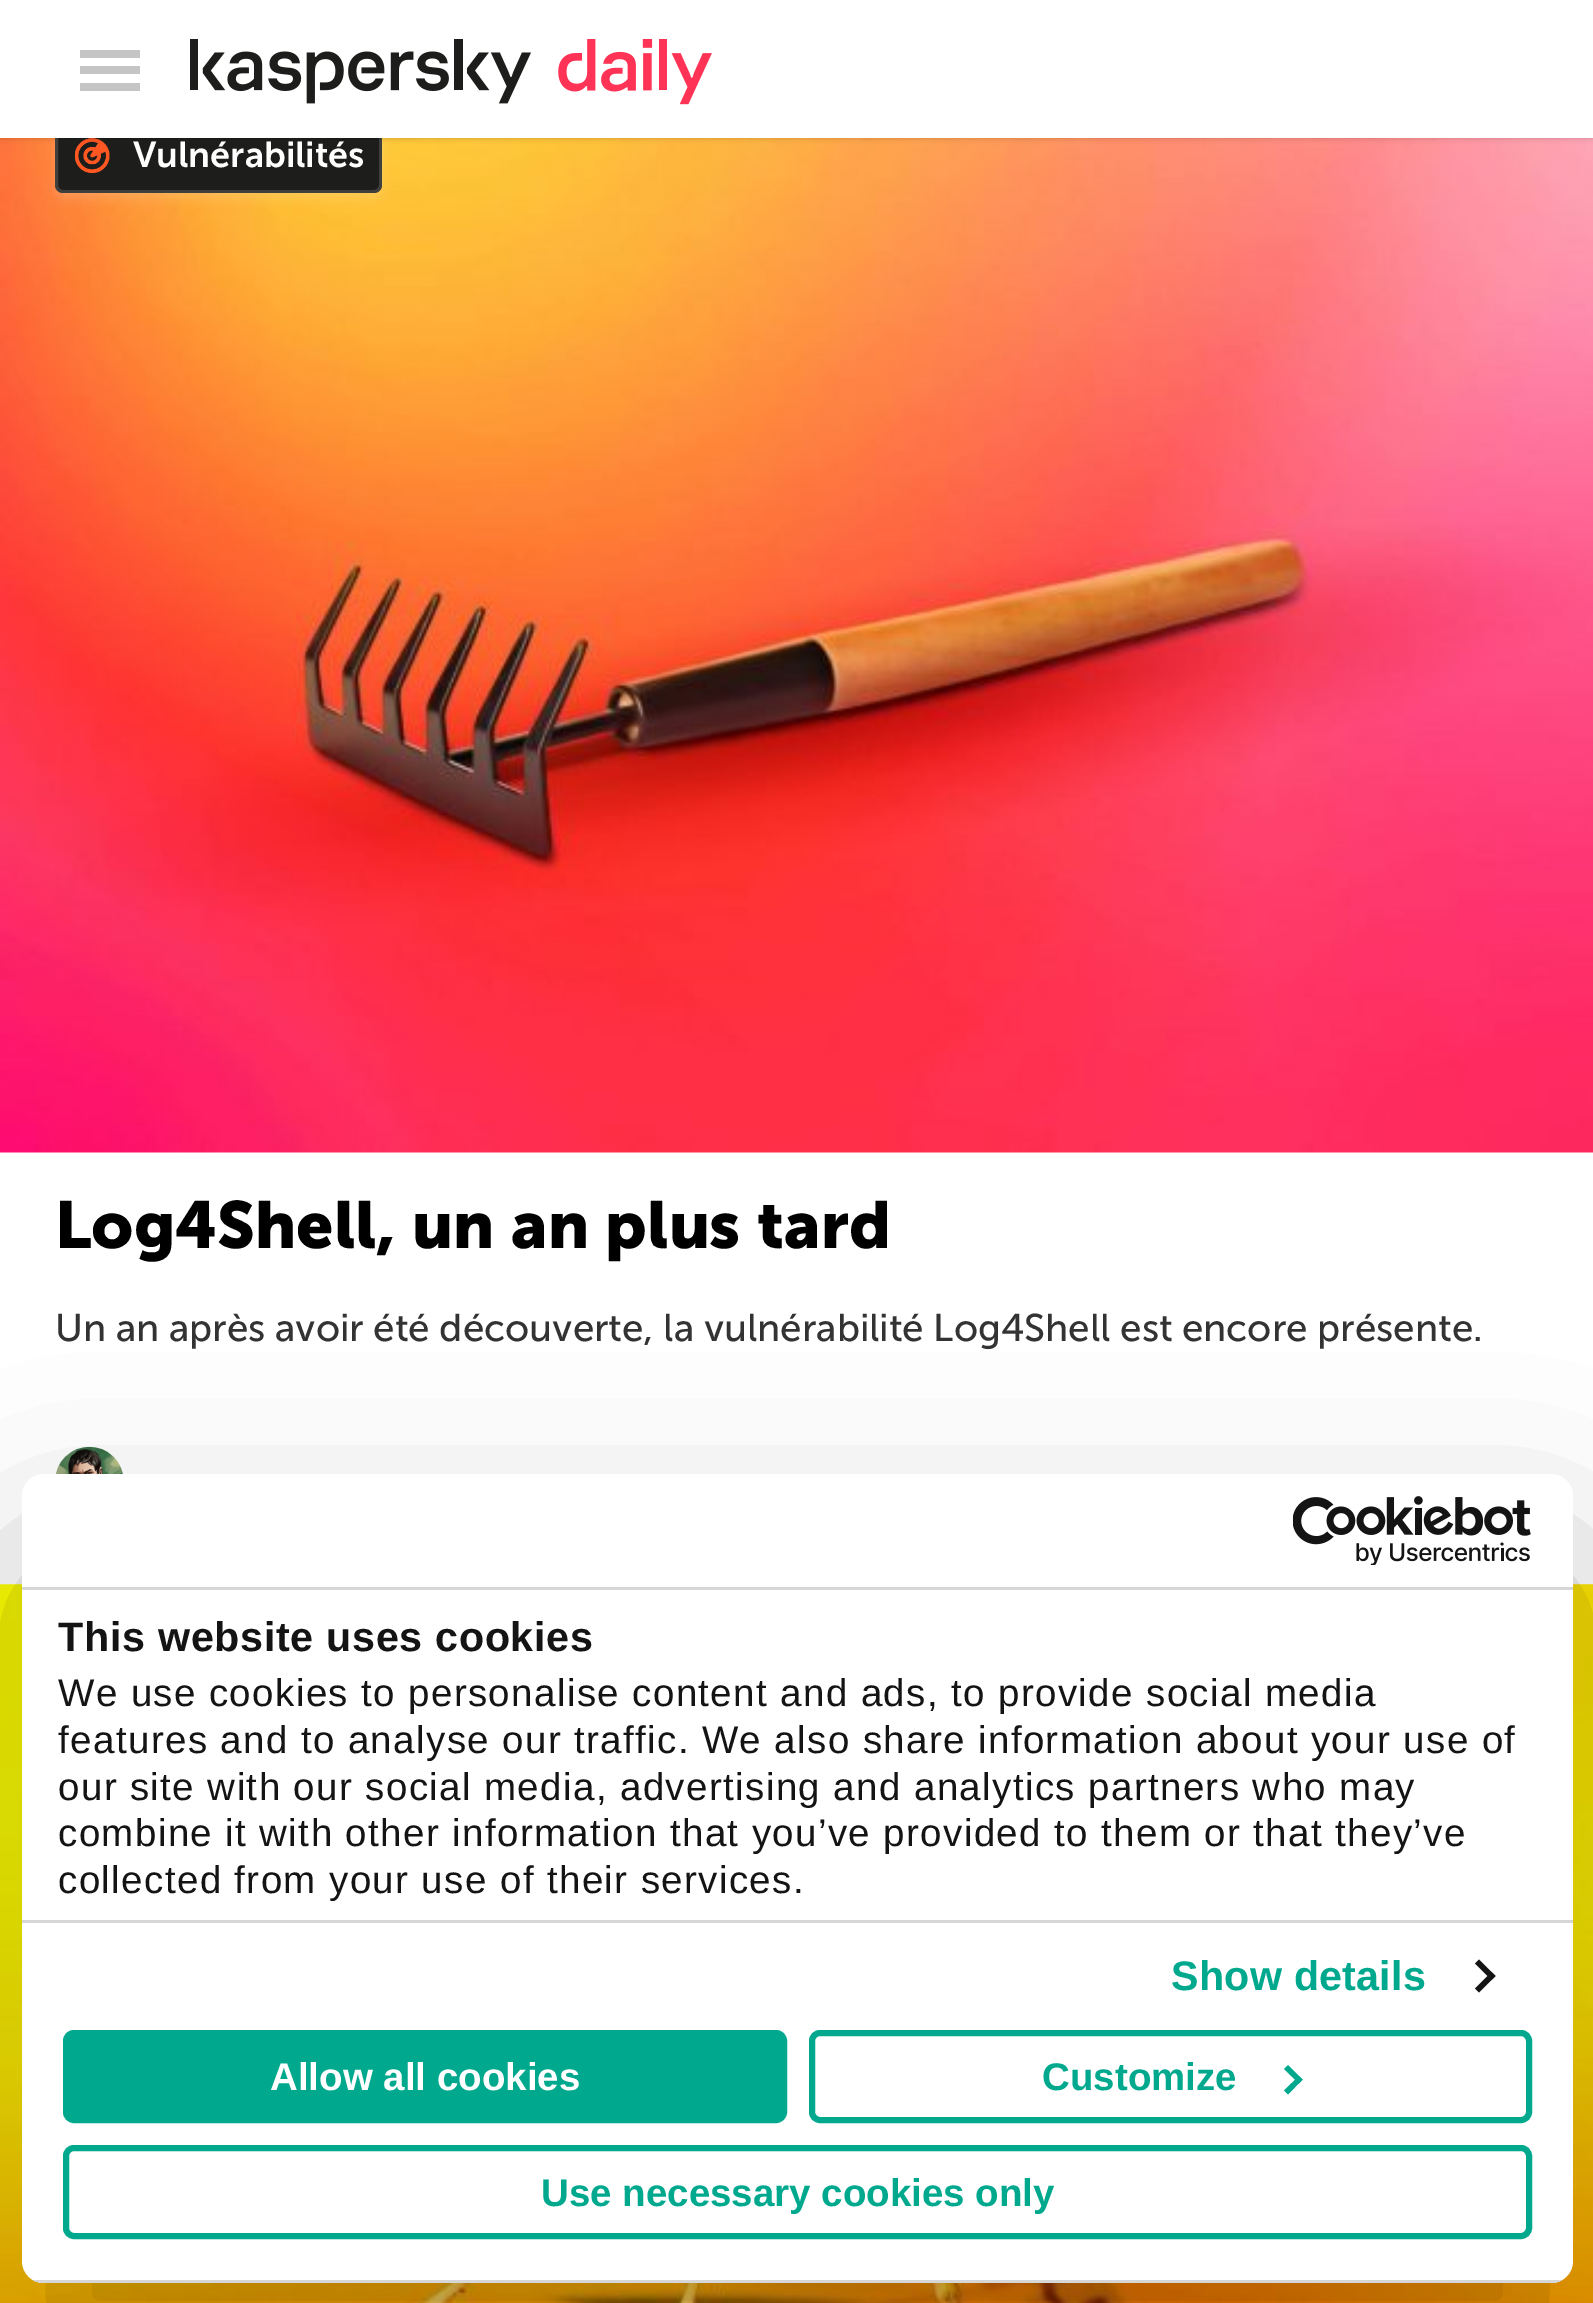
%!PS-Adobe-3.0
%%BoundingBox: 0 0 1593 2303
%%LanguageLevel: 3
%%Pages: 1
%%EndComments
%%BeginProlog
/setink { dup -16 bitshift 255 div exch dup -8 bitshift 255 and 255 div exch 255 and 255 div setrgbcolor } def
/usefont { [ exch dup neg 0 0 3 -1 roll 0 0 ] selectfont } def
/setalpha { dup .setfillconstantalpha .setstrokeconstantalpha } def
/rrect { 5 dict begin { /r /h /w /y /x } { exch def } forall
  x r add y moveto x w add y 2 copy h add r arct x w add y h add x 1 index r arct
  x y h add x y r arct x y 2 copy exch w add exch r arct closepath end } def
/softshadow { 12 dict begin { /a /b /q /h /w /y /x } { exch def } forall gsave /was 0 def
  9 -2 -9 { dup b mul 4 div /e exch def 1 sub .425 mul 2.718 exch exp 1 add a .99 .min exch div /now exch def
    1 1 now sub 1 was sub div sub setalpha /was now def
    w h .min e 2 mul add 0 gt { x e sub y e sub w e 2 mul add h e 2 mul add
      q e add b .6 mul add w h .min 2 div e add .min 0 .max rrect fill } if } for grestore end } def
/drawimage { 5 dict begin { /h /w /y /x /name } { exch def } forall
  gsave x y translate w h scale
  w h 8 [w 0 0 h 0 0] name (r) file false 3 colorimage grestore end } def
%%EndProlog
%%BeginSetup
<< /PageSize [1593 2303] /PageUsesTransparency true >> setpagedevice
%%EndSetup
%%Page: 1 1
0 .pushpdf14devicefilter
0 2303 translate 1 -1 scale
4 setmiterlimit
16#FFFFFF setink
0 0 1593 2303 rectfill
(img3.raw) 0 138 1593 1015 drawimage
55 127 327 71 8 5.5 0.15 softshadow
16#1D1D1B setink
55 121 327 72 8 rrect fill
0.2 setalpha
16#C7C7C7 setink
3 setlinewidth
56.5 122.5 324 69 6.5 rrect stroke
1 setalpha
(img4.raw) 74 138 36 36 drawimage
16#000000 setink
0 0 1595 138 0 3 0.2 softshadow
[
    [0 0 1593 138 16#FFFFFF]
    [80 50 60 8 16#C5C5C5]
    [80 66 60 8 16#C5C5C5]
    [80 83 60 8 16#C5C5C5]
] { aload pop setink rectfill } forall
(img1.raw) 190 39 341 65 drawimage
(img2.raw) 558 39 154 66 drawimage
/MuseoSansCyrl-SemiBold 35.75 usefont
16#FFFFFF setink
133 167 moveto (Vulnérabilités) show
/MuseoSansCyrl-Bold 66 usefont
16#000000 setink
55 1248 moveto (Log4Shell, un an plus tard) show
/MuseoSansCyrl-Regular 38.5 usefont
16#333333 setink
55 1341 moveto (Un an après avoir été découverte, la vulnérabilité Log4Shell est encore présente.) show
(img5.raw) 55 1446 68 28 drawimage
(img6.raw) 0 1584 1593 719 drawimage
16#000000 setink
22 1562 1551 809 22 93.5 0.3 softshadow
16#FFFFFF setink
22 1474 1551 809 22 rrect fill
16#D6D6D6 setink
22 1587 1551 3 rectfill
(img7.raw) 1293 1496 238 69 drawimage
22 1920 1551 3 rectfill
/LiberationSans-Bold 41.25 usefont
16#141414 setink
58 1651 moveto 0.7 0 (This website uses cookies) ashow
/LiberationSans-Regular 38.5 usefont
58 1706 moveto 1.38 0 (We use cookies to personalise content and ads, to provide social media) ashow
58 1753 moveto 1.38 0 (features and to analyse our traffic. We also share information about your use of) ashow
58 1800 moveto 1.38 0 (our site with our social media, advertising and analytics partners who may) ashow
58 1846 moveto 1.38 0 (combine it with other information that you’ve provided to them or that they’ve) ashow
58 1893 moveto 1.38 0 (collected from your use of their services.) ashow
/LiberationSans-Bold 41.25 usefont
16#00A88E setink
1171 1990 moveto 0.25 0 (Show details) ashow
16#141414 setink
1479 1959.5 moveto 1495.5 1976 lineto 1491.5 1980 lineto 1475 1963.5 lineto closepath fill
1491.5 1972 moveto 1495.5 1976 lineto 1479 1992.5 lineto 1475 1988.5 lineto closepath fill
gsave
22 1474 1551 809 22 rrect clip newpath
16#D6D6D6 setink
33 2280 1529 3 rectfill
grestore
16#00A88E setink
66 2033 718 87 8 rrect gsave fill grestore
6 setlinewidth
stroke
/LiberationSans-Bold 38.5 usefont
16#FFFFFF setink
270 2090 moveto (Allow all cookies) show
16#00A88E setink
812 2033 717 87 8 rrect stroke
1042 2090 moveto (Customize) show
1288 2065 moveto 1302.5 2079.5 lineto 1299 2083.5 lineto 1284 2069 lineto closepath fill
1299 2076 moveto 1302.5 2079.5 lineto 1288 2094.5 lineto 1284 2090.5 lineto closepath fill
66 2148 1463 88 8 rrect stroke
541 2206 moveto (Use necessary cookies only) show
.poppdf14devicefilter showpage
%%EOF
